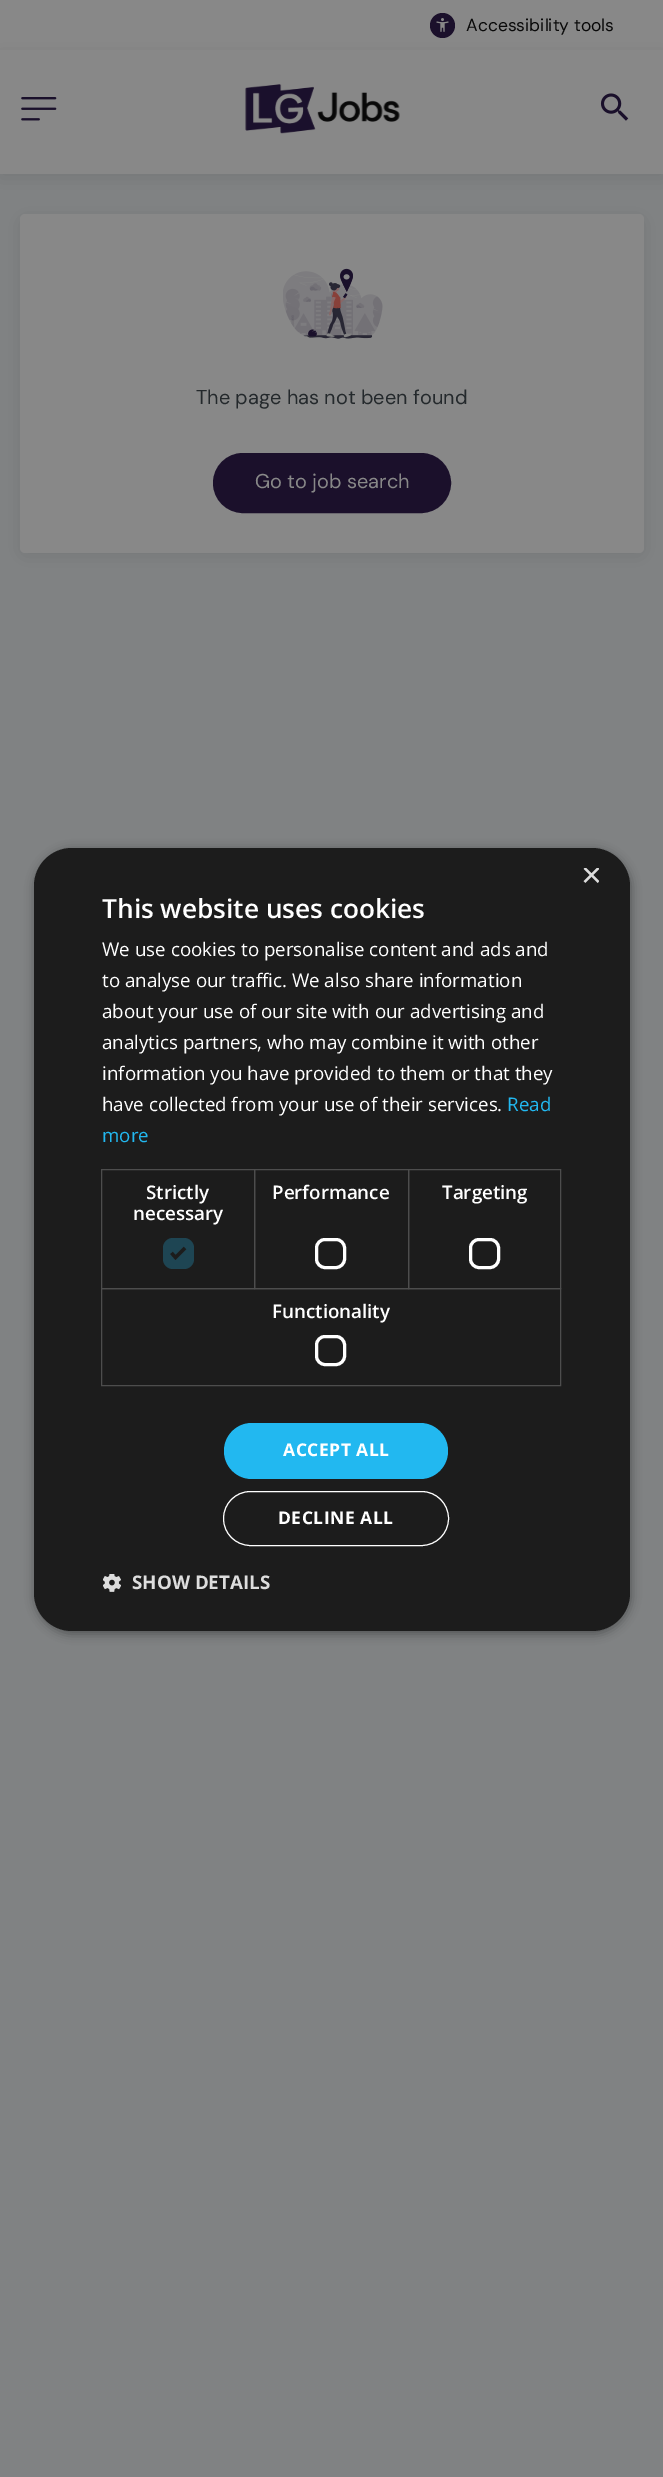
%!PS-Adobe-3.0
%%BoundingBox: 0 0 663 2477
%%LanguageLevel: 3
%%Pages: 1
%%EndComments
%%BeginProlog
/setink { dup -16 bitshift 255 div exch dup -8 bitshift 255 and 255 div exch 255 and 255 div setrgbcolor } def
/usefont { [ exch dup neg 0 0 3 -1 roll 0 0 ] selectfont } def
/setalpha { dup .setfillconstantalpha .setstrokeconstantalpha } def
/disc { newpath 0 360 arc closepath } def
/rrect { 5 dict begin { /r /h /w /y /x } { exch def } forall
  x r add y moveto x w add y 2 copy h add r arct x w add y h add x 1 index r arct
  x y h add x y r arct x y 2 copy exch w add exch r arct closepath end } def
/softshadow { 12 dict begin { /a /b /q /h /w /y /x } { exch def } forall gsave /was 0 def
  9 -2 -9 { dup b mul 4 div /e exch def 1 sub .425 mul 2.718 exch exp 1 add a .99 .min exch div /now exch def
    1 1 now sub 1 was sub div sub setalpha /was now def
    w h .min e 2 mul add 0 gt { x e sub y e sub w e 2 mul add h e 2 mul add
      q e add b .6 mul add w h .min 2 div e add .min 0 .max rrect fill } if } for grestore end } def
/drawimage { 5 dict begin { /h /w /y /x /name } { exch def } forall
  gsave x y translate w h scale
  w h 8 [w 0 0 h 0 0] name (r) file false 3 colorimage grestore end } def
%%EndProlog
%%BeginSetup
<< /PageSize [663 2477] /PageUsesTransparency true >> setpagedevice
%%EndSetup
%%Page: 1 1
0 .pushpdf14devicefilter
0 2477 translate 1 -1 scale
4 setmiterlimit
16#808283 setink
0 0 663 2477 rectfill
16#888888 setink
0 0 663 50 rectfill
16#090909 setink
0 54 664 124 0 9.5 0.1 softshadow
16#1B102B setink
442.5 25.5 12.5 disc fill
(img1.raw) 436 18 13 14 drawimage
/DMSans-Regular 17.5 usefont
16#090909 setink
466 31 moveto (Accessibility tools) show
16#888888 setink
0 50 663 124 rectfill
(img2.raw) 21 97 36 24 drawimage
(img3.raw) 245 84 155 50 drawimage
(img4.raw) 600 93 29 28 drawimage
16#090909 setink
20 218 624 338 5 9.5 0.1 softshadow
16#888888 setink
20 214 624 339 5 rrect fill
(img5.raw) 283 268 100 71 drawimage
/DMSans-Regular 20 usefont
16#24292C setink
196 404 moveto (The page has not been found) show
16#1B102B setink
214.5 454.5 235 57 28.5 rrect gsave fill grestore
3 setlinewidth
stroke
16#888888 setink
255 488 moveto (Go to job search) show
16#000000 setink
35 850 596 784 38 5 0.35 softshadow
16#1C1C1C setink
34 848 596 783 38 rrect fill
gsave
580 868 19 18 rectclip
/LiberationSans-Regular 36 usefont
16#DDDDDD setink
581 887 moveto (×) show
grestore
/OpenSans-SemiBold 26.25 usefont
16#FFFFFF setink
102 918 moveto (This website uses cookies) show
/OpenSans-Regular 18.75 usefont
[
    [(We use cookies to personalise content and ads and) 102 956]
    [(to analyse our traffic. We also share information) 102 987]
    [(about your use of our site with our advertising and) 102 1018]
    [(analytics partners, who may combine it with other) 102 1049]
    [(information you have provided to them or that they) 102 1080]
    [(have collected from your use of their services.) 102 1111]
] { aload pop moveto show } forall
16#22B8F0 setink
507 1111 moveto (Read) show
102 1142 moveto (more) show
16#4D4D4D setink
1 setlinewidth
101.5 1169.5 153 119 rectstroke
/OpenSans-SemiBold 18.75 usefont
16#FFFFFF setink
146 1199 moveto (Strictly) show
133 1220 moveto (necessary) show
16#1E4553 setink
163 1238 31 31 10 rrect fill
16#1C1C1C setink
3.3 setlinewidth
171.5 1253 moveto 175.5 1257.5 lineto 185 1248 lineto stroke
16#4D4D4D setink
1 setlinewidth
254.5 1169.5 154 119 rectstroke
16#FFFFFF setink
272 1199 moveto (Performance) show
3 setlinewidth
316.5 1239.5 28 28 8.5 rrect stroke
16#4D4D4D setink
1 setlinewidth
408.5 1169.5 152 119 rectstroke
16#FFFFFF setink
442 1199 moveto (Targeting) show
3 setlinewidth
470.5 1239.5 28 28 8.5 rrect stroke
16#4D4D4D setink
1 setlinewidth
101.5 1288.5 459 97 rectstroke
16#FFFFFF setink
272 1318 moveto (Functionality) show
3 setlinewidth
316.5 1336.5 28 28 8.5 rrect stroke
16#22B8F0 setink
224 1423 224 56 28 rrect fill
/OpenSans-Bold 17.5 usefont
16#FFFFFF setink
283 1456 moveto 0.5 0 (ACCEPT ALL) ashow
1 setlinewidth
223.5 1491.5 225 54 27 rrect stroke
278 1524 moveto 0.5 0 (DECLINE ALL) ashow
(img6.raw) 103 1574 18 18 drawimage
/OpenSans-Bold 18.75 usefont
16#DDDDDD setink
132 1589 moveto (SHOW DETAILS) show
.poppdf14devicefilter showpage
%%EOF
